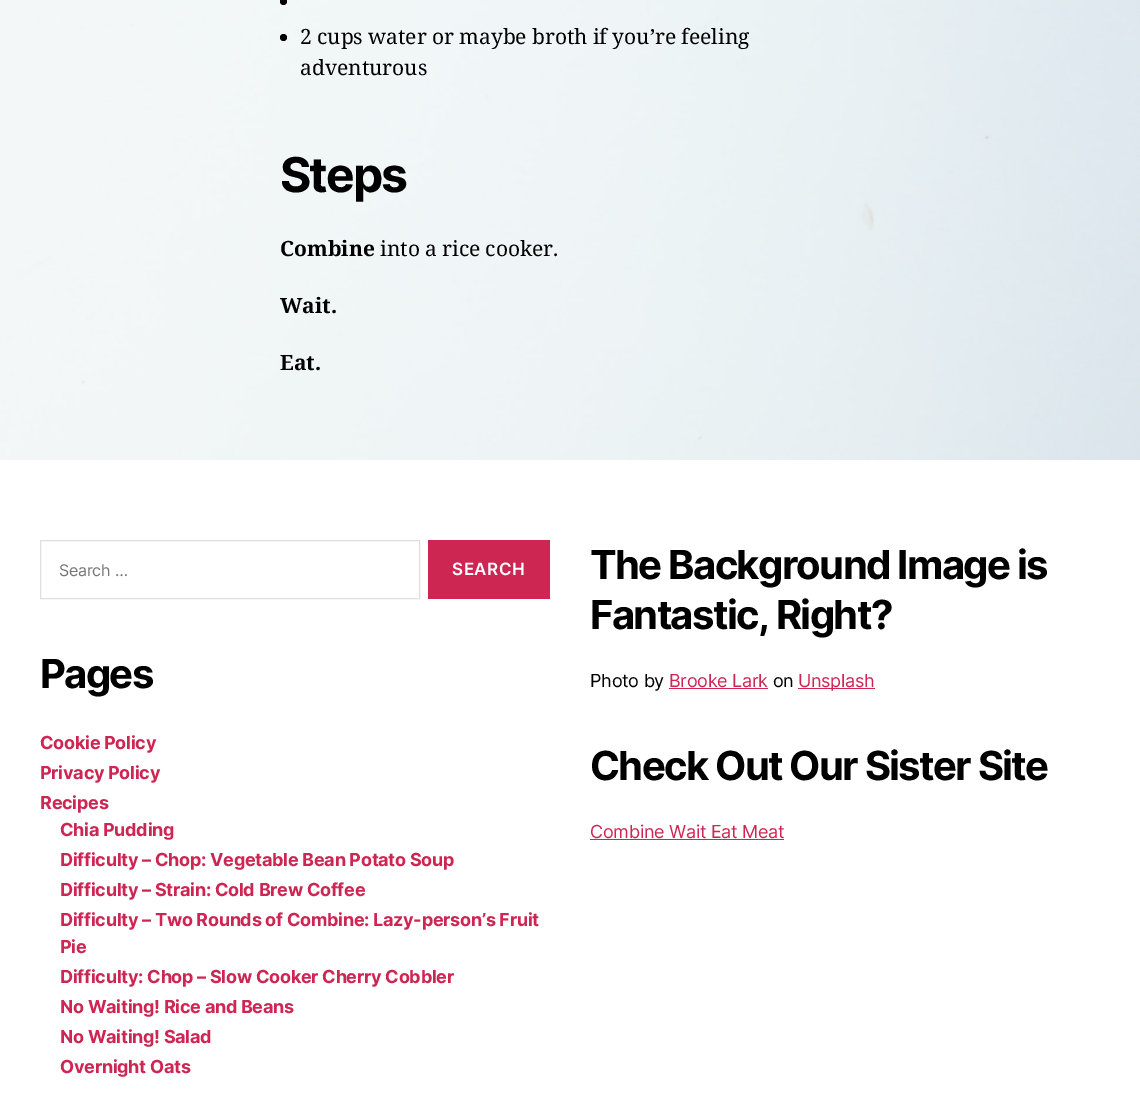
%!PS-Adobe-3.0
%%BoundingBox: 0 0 1140 1097
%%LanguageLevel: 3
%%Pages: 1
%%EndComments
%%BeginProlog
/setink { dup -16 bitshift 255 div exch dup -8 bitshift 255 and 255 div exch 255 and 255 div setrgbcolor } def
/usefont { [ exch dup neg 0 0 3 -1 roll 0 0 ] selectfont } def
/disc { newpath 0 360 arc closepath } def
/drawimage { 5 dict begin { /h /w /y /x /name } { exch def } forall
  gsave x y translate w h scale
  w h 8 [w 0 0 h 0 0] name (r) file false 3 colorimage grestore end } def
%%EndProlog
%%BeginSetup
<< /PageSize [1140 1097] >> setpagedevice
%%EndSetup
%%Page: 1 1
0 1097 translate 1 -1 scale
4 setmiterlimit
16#FFFFFF setink
0 0 1140 1097 rectfill
(img1.raw) 0 0 1140 460 drawimage
16#000000 setink
283.5 1.5 3.5 disc fill
283.5 37.5 3.5 disc fill
/NotoSerif-Regular 21 usefont
300 44 moveto -0.25 0 32 (2 cups water or maybe broth if you’re feeling) widthshow
300 75 moveto (adventurous) show
/Inter-Bold 48 usefont
280 192 moveto -2 0 (Steps) ashow
/NotoSerif-Bold 21 usefont
280 256 moveto (Combine) show
/NotoSerif-Regular 21 usefont
380 256 moveto -0.25 0 32 (into a rice cooker.) widthshow
/NotoSerif-Bold 21 usefont
280 313 moveto (Wait.) show
280 370 moveto (Eat.) show
16#DEDFDF setink
40.5 540.5 379 58 rectstroke
/Inter-Regular 16 usefont
16#757575 setink
59 576 moveto -0.25 0 (Search …) ashow
16#CD2653 setink
428 540 122 59 rectfill
/Inter-SemiBold 17 usefont
16#FFFFFF setink
452 575 moveto 0.5 0 (SEARCH) ashow
/Inter-Bold 40 usefont
16#000000 setink
40 688 moveto -1.65 0 (Pages) ashow
/Inter-Bold 18 usefont
16#CD2653 setink
40 749 moveto -0.27 0 (Cookie Policy) ashow
40 779 moveto -0.27 0 (Privacy Policy) ashow
40 809 moveto -0.27 0 (Recipes) ashow
60 836 moveto -0.27 0 (Chia Pudding) ashow
60 866 moveto -0.27 0 (Difficulty – Chop: Vegetable Bean Potato Soup) ashow
60 896 moveto -0.27 0 (Difficulty – Strain: Cold Brew Coffee) ashow
60 926 moveto -0.27 0 (Difficulty – Two Rounds of Combine: Lazy-person’s Fruit) ashow
60 953 moveto -0.27 0 (Pie) ashow
60 983 moveto -0.27 0 (Difficulty: Chop – Slow Cooker Cherry Cobbler) ashow
60 1013 moveto -0.27 0 (No Waiting! Rice and Beans) ashow
60 1043 moveto -0.27 0 (No Waiting! Salad) ashow
60 1073 moveto -0.27 0 (Overnight Oats) ashow
/Inter-Bold 40 usefont
16#000000 setink
590 579 moveto -1.65 0 (The Background Image is) ashow
590 629 moveto -1.65 0 (Fantastic, Right?) ashow
/Inter-Regular 18 usefont
590 687 moveto -0.27 0 (Photo by) ashow
16#CD2653 setink
669 687 moveto -0.27 0 (Brooke Lark) ashow
669 688 99 1 rectfill
16#000000 setink
773 687 moveto -0.27 0 (on) ashow
16#CD2653 setink
798 688 77 1 rectfill
798 687 moveto -0.27 0 (Unsplash) ashow
/Inter-Bold 40 usefont
16#000000 setink
590 780 moveto -1.65 0 (Check Out Our Sister Site) ashow
/Inter-Regular 18 usefont
16#CD2653 setink
590 838 moveto -0.27 0 (Combine Wait Eat Meat) ashow
590 839 194 1 rectfill
showpage
%%EOF
